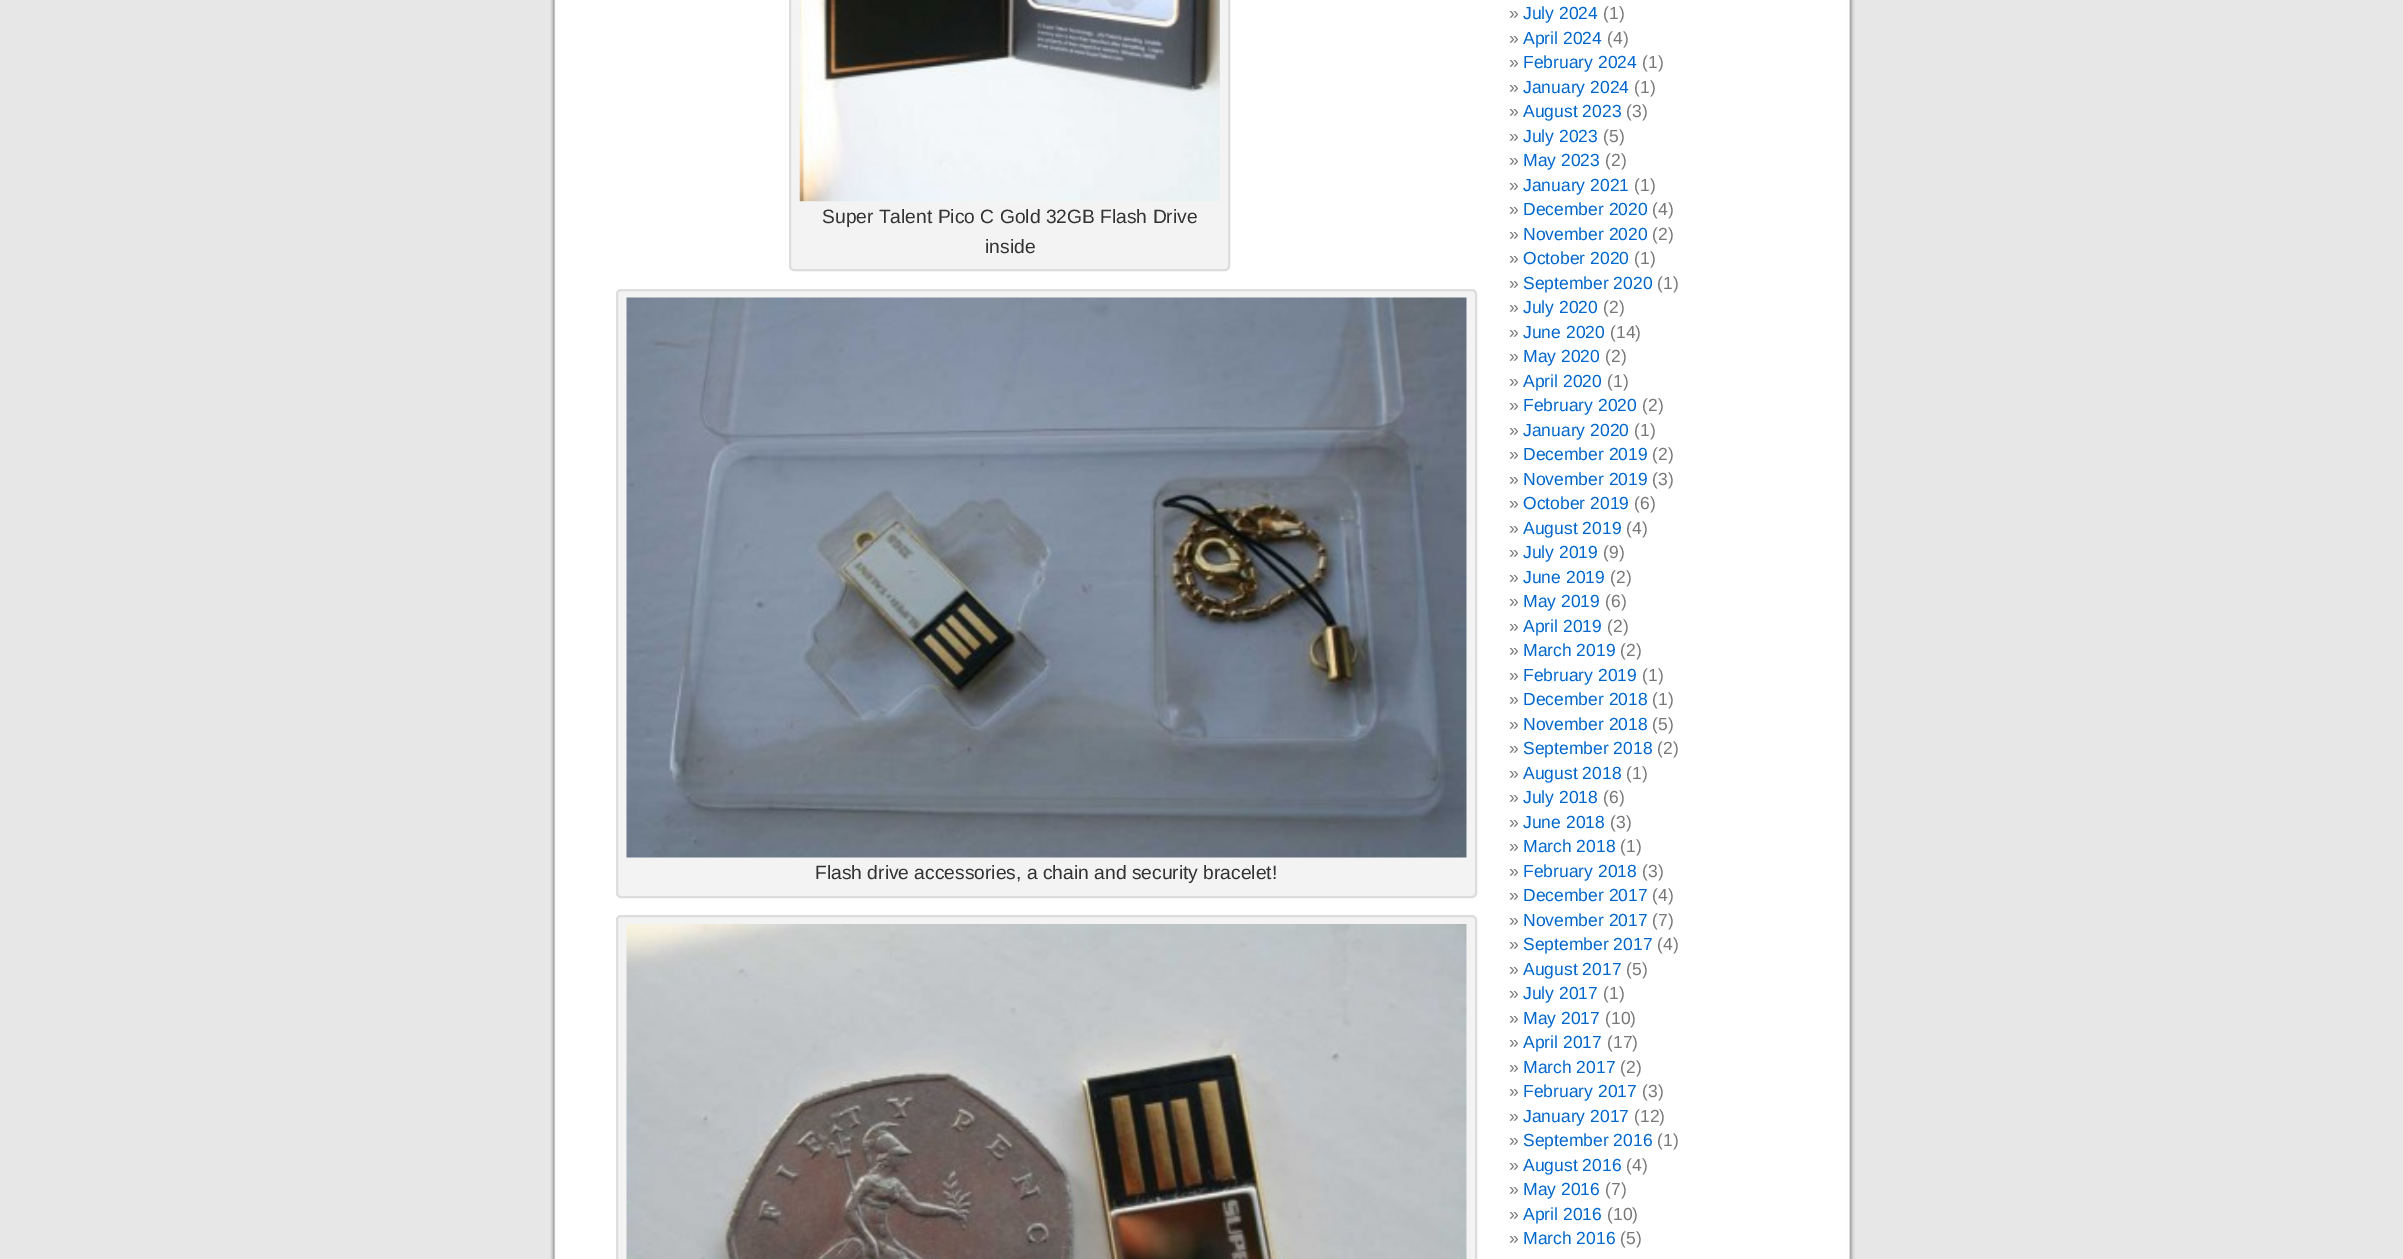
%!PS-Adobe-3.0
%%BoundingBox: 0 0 2403 1259
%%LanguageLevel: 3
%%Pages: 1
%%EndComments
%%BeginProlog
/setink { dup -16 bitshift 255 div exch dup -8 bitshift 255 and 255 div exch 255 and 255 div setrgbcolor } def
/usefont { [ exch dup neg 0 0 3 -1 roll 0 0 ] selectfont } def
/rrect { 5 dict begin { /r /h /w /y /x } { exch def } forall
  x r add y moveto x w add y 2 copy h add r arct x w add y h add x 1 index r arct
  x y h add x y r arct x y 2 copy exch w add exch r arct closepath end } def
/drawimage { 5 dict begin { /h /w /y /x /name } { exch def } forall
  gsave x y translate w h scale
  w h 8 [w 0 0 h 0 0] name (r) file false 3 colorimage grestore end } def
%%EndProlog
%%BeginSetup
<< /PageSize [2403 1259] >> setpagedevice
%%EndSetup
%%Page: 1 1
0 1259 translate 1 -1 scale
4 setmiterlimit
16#E7E7E7 setink
0 0 2403 1259 rectfill
(img1.raw) 550 0 1305 1259 drawimage
16#F3F3F3 setink
790 -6 439 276 4 rrect gsave fill grestore
16#DDDDDD setink
2 setlinewidth
stroke
(img2.raw) 799 0 421 202 drawimage
/LiberationSans-Regular 19.25 usefont
16#333333 setink
822 223 moveto (Super Talent Pico C Gold 32GB Flash Drive) show
985 253 moveto (inside) show
16#F3F3F3 setink
617 290 859 607 4 rrect gsave fill grestore
16#DDDDDD setink
stroke
(img3.raw) 626 297 841 561 drawimage
16#333333 setink
815 879 moveto (Flash drive accessories, a chain and security bracelet!) show
16#F3F3F3 setink
617 916 859 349 4 rrect gsave fill grestore
16#DDDDDD setink
stroke
(img4.raw) 626 924 841 335 drawimage
/LiberationSans-Regular 17.5 usefont
16#777777 setink
1509 19 moveto (») show
16#0066CC setink
1523 19 moveto (July 2024) show
16#777777 setink
1603 19 moveto (\(1\)) show
1509 44 moveto (») show
16#0066CC setink
1523 44 moveto (April 2024) show
16#777777 setink
1607 44 moveto (\(4\)) show
1509 68 moveto (») show
16#0066CC setink
1523 68 moveto (February 2024) show
16#777777 setink
1642 68 moveto (\(1\)) show
1509 93 moveto (») show
16#0066CC setink
1523 93 moveto (January 2024) show
16#777777 setink
1634 93 moveto (\(1\)) show
1509 117 moveto (») show
16#0066CC setink
1523 117 moveto (August 2023) show
16#777777 setink
1626 117 moveto (\(3\)) show
1509 142 moveto (») show
16#0066CC setink
1523 142 moveto (July 2023) show
16#777777 setink
1603 142 moveto (\(5\)) show
1509 166 moveto (») show
16#0066CC setink
1523 166 moveto (May 2023) show
16#777777 setink
1605 166 moveto (\(2\)) show
1509 191 moveto (») show
16#0066CC setink
1523 191 moveto (January 2021) show
16#777777 setink
1634 191 moveto (\(1\)) show
1509 215 moveto (») show
16#0066CC setink
1523 215 moveto (December 2020) show
16#777777 setink
1652 215 moveto (\(4\)) show
1509 240 moveto (») show
16#0066CC setink
1523 240 moveto (November 2020) show
16#777777 setink
1652 240 moveto (\(2\)) show
1509 264 moveto (») show
16#0066CC setink
1523 264 moveto (October 2020) show
16#777777 setink
1634 264 moveto (\(1\)) show
1509 289 moveto (») show
16#0066CC setink
1523 289 moveto (September 2020) show
16#777777 setink
1657 289 moveto (\(1\)) show
1509 313 moveto (») show
16#0066CC setink
1523 313 moveto (July 2020) show
16#777777 setink
1603 313 moveto (\(2\)) show
1509 338 moveto (») show
16#0066CC setink
1523 338 moveto (June 2020) show
16#777777 setink
1610 338 moveto (\(14\)) show
1509 362 moveto (») show
16#0066CC setink
1523 362 moveto (May 2020) show
16#777777 setink
1605 362 moveto (\(2\)) show
1509 387 moveto (») show
16#0066CC setink
1523 387 moveto (April 2020) show
16#777777 setink
1607 387 moveto (\(1\)) show
1509 411 moveto (») show
16#0066CC setink
1523 411 moveto (February 2020) show
16#777777 setink
1642 411 moveto (\(2\)) show
1509 436 moveto (») show
16#0066CC setink
1523 436 moveto (January 2020) show
16#777777 setink
1634 436 moveto (\(1\)) show
1509 460 moveto (») show
16#0066CC setink
1523 460 moveto (December 2019) show
16#777777 setink
1652 460 moveto (\(2\)) show
1509 485 moveto (») show
16#0066CC setink
1523 485 moveto (November 2019) show
16#777777 setink
1652 485 moveto (\(3\)) show
1509 509 moveto (») show
16#0066CC setink
1523 509 moveto (October 2019) show
16#777777 setink
1634 509 moveto (\(6\)) show
1509 534 moveto (») show
16#0066CC setink
1523 534 moveto (August 2019) show
16#777777 setink
1626 534 moveto (\(4\)) show
1509 558 moveto (») show
16#0066CC setink
1523 558 moveto (July 2019) show
16#777777 setink
1603 558 moveto (\(9\)) show
1509 583 moveto (») show
16#0066CC setink
1523 583 moveto (June 2019) show
16#777777 setink
1610 583 moveto (\(2\)) show
1509 607 moveto (») show
16#0066CC setink
1523 607 moveto (May 2019) show
16#777777 setink
1605 607 moveto (\(6\)) show
1509 632 moveto (») show
16#0066CC setink
1523 632 moveto (April 2019) show
16#777777 setink
1607 632 moveto (\(2\)) show
1509 656 moveto (») show
16#0066CC setink
1523 656 moveto (March 2019) show
16#777777 setink
1620 656 moveto (\(2\)) show
1509 681 moveto (») show
16#0066CC setink
1523 681 moveto (February 2019) show
16#777777 setink
1642 681 moveto (\(1\)) show
1509 705 moveto (») show
16#0066CC setink
1523 705 moveto (December 2018) show
16#777777 setink
1652 705 moveto (\(1\)) show
1509 730 moveto (») show
16#0066CC setink
1523 730 moveto (November 2018) show
16#777777 setink
1652 730 moveto (\(5\)) show
1509 754 moveto (») show
16#0066CC setink
1523 754 moveto (September 2018) show
16#777777 setink
1657 754 moveto (\(2\)) show
1509 779 moveto (») show
16#0066CC setink
1523 779 moveto (August 2018) show
16#777777 setink
1626 779 moveto (\(1\)) show
1509 803 moveto (») show
16#0066CC setink
1523 803 moveto (July 2018) show
16#777777 setink
1603 803 moveto (\(6\)) show
1509 828 moveto (») show
16#0066CC setink
1523 828 moveto (June 2018) show
16#777777 setink
1610 828 moveto (\(3\)) show
1509 852 moveto (») show
16#0066CC setink
1523 852 moveto (March 2018) show
16#777777 setink
1620 852 moveto (\(1\)) show
1509 877 moveto (») show
16#0066CC setink
1523 877 moveto (February 2018) show
16#777777 setink
1642 877 moveto (\(3\)) show
1509 901 moveto (») show
16#0066CC setink
1523 901 moveto (December 2017) show
16#777777 setink
1652 901 moveto (\(4\)) show
1509 926 moveto (») show
16#0066CC setink
1523 926 moveto (November 2017) show
16#777777 setink
1652 926 moveto (\(7\)) show
1509 950 moveto (») show
16#0066CC setink
1523 950 moveto (September 2017) show
16#777777 setink
1657 950 moveto (\(4\)) show
1509 975 moveto (») show
16#0066CC setink
1523 975 moveto (August 2017) show
16#777777 setink
1626 975 moveto (\(5\)) show
1509 999 moveto (») show
16#0066CC setink
1523 999 moveto (July 2017) show
16#777777 setink
1603 999 moveto (\(1\)) show
1509 1024 moveto (») show
16#0066CC setink
1523 1024 moveto (May 2017) show
16#777777 setink
1605 1024 moveto (\(10\)) show
1509 1048 moveto (») show
16#0066CC setink
1523 1048 moveto (April 2017) show
16#777777 setink
1607 1048 moveto (\(17\)) show
1509 1073 moveto (») show
16#0066CC setink
1523 1073 moveto (March 2017) show
16#777777 setink
1620 1073 moveto (\(2\)) show
1509 1097 moveto (») show
16#0066CC setink
1523 1097 moveto (February 2017) show
16#777777 setink
1642 1097 moveto (\(3\)) show
1509 1122 moveto (») show
16#0066CC setink
1523 1122 moveto (January 2017) show
16#777777 setink
1634 1122 moveto (\(12\)) show
1509 1146 moveto (») show
16#0066CC setink
1523 1146 moveto (September 2016) show
16#777777 setink
1657 1146 moveto (\(1\)) show
1509 1171 moveto (») show
16#0066CC setink
1523 1171 moveto (August 2016) show
16#777777 setink
1626 1171 moveto (\(4\)) show
1509 1195 moveto (») show
16#0066CC setink
1523 1195 moveto (May 2016) show
16#777777 setink
1605 1195 moveto (\(7\)) show
1509 1220 moveto (») show
16#0066CC setink
1523 1220 moveto (April 2016) show
16#777777 setink
1607 1220 moveto (\(10\)) show
1509 1244 moveto (») show
16#0066CC setink
1523 1244 moveto (March 2016) show
16#777777 setink
1620 1244 moveto (\(5\)) show
showpage
%%EOF
